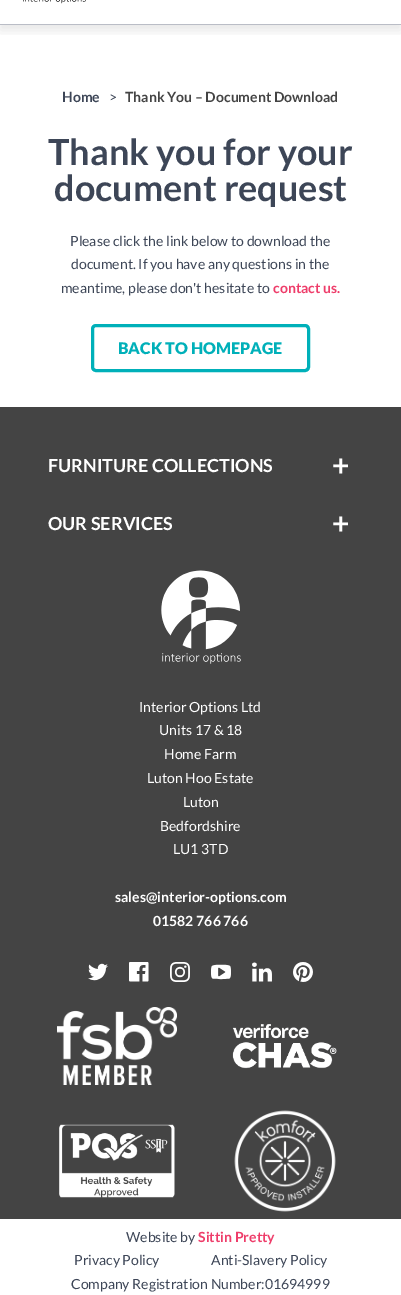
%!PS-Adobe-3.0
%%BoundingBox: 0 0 401 1295
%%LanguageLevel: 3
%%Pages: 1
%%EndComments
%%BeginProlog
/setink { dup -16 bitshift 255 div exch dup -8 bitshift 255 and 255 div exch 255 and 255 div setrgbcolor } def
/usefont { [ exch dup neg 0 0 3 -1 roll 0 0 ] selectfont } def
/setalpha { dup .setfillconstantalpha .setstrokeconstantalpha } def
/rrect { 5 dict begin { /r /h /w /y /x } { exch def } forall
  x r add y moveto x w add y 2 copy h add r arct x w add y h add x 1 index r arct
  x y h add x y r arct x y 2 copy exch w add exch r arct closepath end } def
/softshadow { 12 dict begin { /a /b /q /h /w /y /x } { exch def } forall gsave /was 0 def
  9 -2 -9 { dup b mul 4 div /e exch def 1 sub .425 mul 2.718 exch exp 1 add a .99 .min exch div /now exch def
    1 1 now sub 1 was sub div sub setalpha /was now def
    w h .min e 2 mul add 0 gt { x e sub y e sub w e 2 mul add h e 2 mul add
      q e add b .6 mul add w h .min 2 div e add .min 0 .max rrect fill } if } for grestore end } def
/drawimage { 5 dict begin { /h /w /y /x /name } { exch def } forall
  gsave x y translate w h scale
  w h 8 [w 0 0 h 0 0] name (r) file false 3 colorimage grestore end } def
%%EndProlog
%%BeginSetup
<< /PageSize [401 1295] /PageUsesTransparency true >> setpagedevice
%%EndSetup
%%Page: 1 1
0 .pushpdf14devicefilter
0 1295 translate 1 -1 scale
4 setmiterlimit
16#FFFFFF setink
0 0 401 1295 rectfill
gsave
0 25 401 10 rectclip
16#000000 setink
0 -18 401 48 0 6 0.1 softshadow
grestore
16#BABDC6 setink
0 24 401 1 rectfill
(img1.raw) 23 0 63 4 drawimage
/Lato-Bold 14 usefont
16#3D4657 setink
62 102 moveto (Home) show
/Lato-Regular 14 usefont
109 102 moveto (>) show
/Lato-Bold 14 usefont
16#444444 setink
125 102 moveto (Thank You – Document Download) show
/Lato-Bold 36 usefont
16#3D4657 setink
48 165 moveto (Thank you for your) show
54 201 moveto (document request) show
/Lato-Regular 14 usefont
[
    [(Please click the link below to download the) 70 246]
    [(document. If you have any questions in the) 71 269]
    [(meantime, please don't hesitate to) 61 293]
] { aload pop moveto show } forall
/Lato-Bold 14 usefont
16#EE3D6A setink
273 293 moveto (contact us.) show
16#00B0B9 setink
3 setlinewidth
92.5 325.5 216 45 3.5 rrect stroke
/Lato-Black 16 usefont
118 354 moveto (BACK TO HOMEPAGE) show
16#444444 setink
0 407 401 812 rectfill
/Lato-Bold 18 usefont
16#FFFFFF setink
48 472 moveto (FURNITURE COLLECTIONS) show
/Lato-Bold 30 usefont
332 476 moveto (+) show
/Lato-Bold 18 usefont
48 530 moveto (OUR SERVICES) show
/Lato-Bold 30 usefont
332 534 moveto (+) show
(img2.raw) 161 570 80 94 drawimage
/Lato-Regular 14 usefont
[
    [(Interior Options Ltd) 139 712]
    [(Units 17 & 18) 159 735]
    [(Home Farm) 164 759]
    [(Luton Hoo Estate) 147 783]
    [(Luton) 183 807]
    [(Bedfordshire) 160 831]
    [(LU1 3TD) 173 854]
] { aload pop moveto show } forall
/Lato-Bold 14 usefont
115 902 moveto (sales@interior-options.com) show
153 926 moveto (01582 766 766) show
(img3.raw) 88 963 20 18 drawimage
(img4.raw) 129 962 20 20 drawimage
(img5.raw) 170 962 20 20 drawimage
(img6.raw) 211 964 20 16 drawimage
(img7.raw) 252 962 20 20 drawimage
(img8.raw) 293 962 20 20 drawimage
(img9.raw) 57 1007 120 78 drawimage
(img10.raw) 232 1024 105 45 drawimage
(img11.raw) 59 1124 116 74 drawimage
(img12.raw) 234 1110 102 102 drawimage
/Lato-Regular 14 usefont
16#3D4657 setink
126 1242 moveto (Website by) show
/Lato-Bold 14 usefont
16#EE3D6A setink
198 1242 moveto (Sittin Pretty) show
/Lato-Regular 14 usefont
16#3D4657 setink
[
    [(Privacy Policy) 74 1265]
    [(Anti-Slavery Policy) 211 1265]
    [(Company Registration Number:01694999) 71 1289]
] { aload pop moveto show } forall
.poppdf14devicefilter showpage
%%EOF
